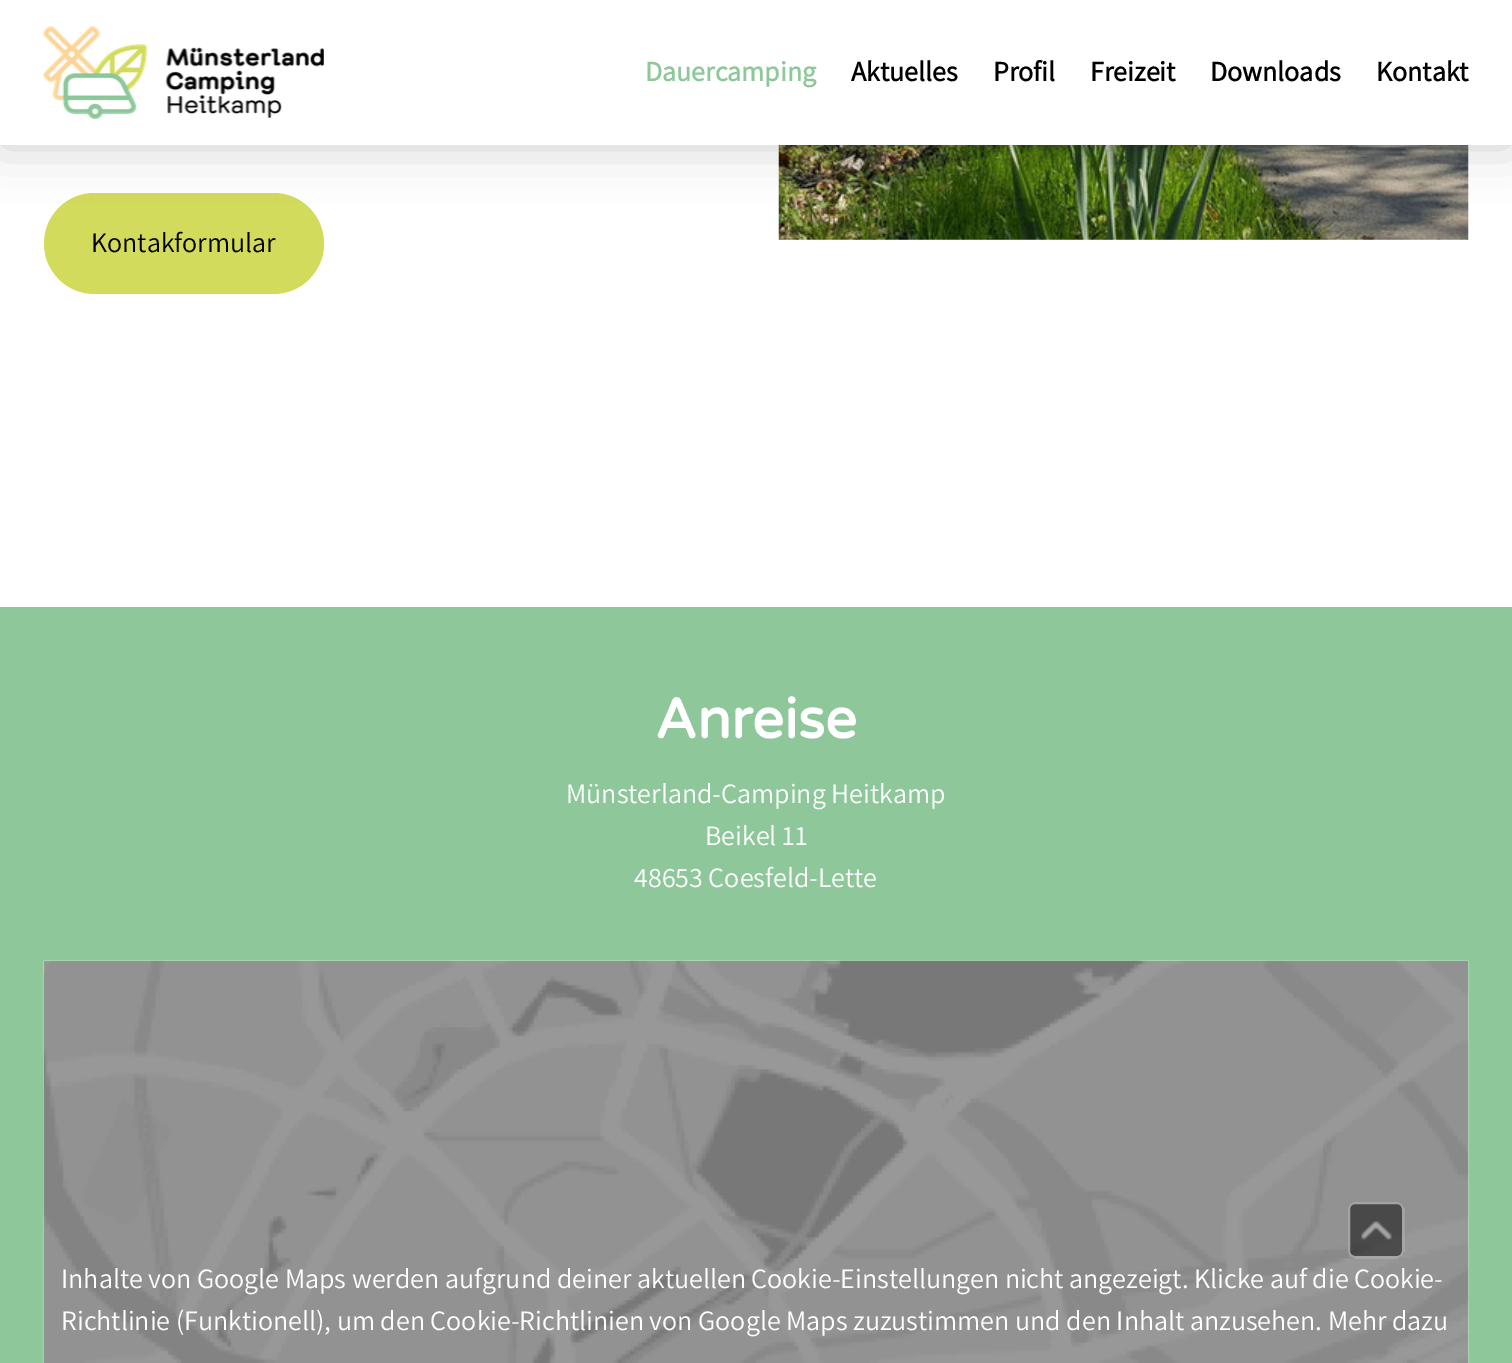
%!PS-Adobe-3.0
%%BoundingBox: 0 0 1512 1363
%%LanguageLevel: 3
%%Pages: 1
%%EndComments
%%BeginProlog
/setink { dup -16 bitshift 255 div exch dup -8 bitshift 255 and 255 div exch 255 and 255 div setrgbcolor } def
/usefont { [ exch dup neg 0 0 3 -1 roll 0 0 ] selectfont } def
/setalpha { dup .setfillconstantalpha .setstrokeconstantalpha } def
/rrect { 5 dict begin { /r /h /w /y /x } { exch def } forall
  x r add y moveto x w add y 2 copy h add r arct x w add y h add x 1 index r arct
  x y h add x y r arct x y 2 copy exch w add exch r arct closepath end } def
/softshadow { 12 dict begin { /a /b /q /h /w /y /x } { exch def } forall gsave /was 0 def
  9 -2 -9 { dup b mul 4 div /e exch def 1 sub .425 mul 2.718 exch exp 1 add a .99 .min exch div /now exch def
    1 1 now sub 1 was sub div sub setalpha /was now def
    w h .min e 2 mul add 0 gt { x e sub y e sub w e 2 mul add h e 2 mul add
      q e add b .6 mul add w h .min 2 div e add .min 0 .max rrect fill } if } for grestore end } def
/drawimage { 5 dict begin { /h /w /y /x /name } { exch def } forall
  gsave x y translate w h scale
  w h 8 [w 0 0 h 0 0] name (r) file false 3 colorimage grestore end } def
%%EndProlog
%%BeginSetup
<< /PageSize [1512 1363] /PageUsesTransparency true >> setpagedevice
%%EndSetup
%%Page: 1 1
0 .pushpdf14devicefilter
0 1363 translate 1 -1 scale
4 setmiterlimit
16#FFFFFF setink
0 0 1512 1363 rectfill
16#D2DB5C setink
44 193 280 101 50.5 rrect fill
(img2.raw) 778 145 691 95 drawimage
16#000000 setink
0 0 1512 145 0 26 0.2 softshadow
16#FFFFFF setink
0 0 1512 145 rectfill
(img1.raw) 43 26 281 93 drawimage
/Assistant-Bold 28 usefont
16#8EC89A setink
645 81 moveto (Dauercamping) show
16#000000 setink
[
    [(Aktuelles) 851 81]
    [(Profil) 993 81]
    [(Freizeit) 1090 81]
    [(Downloads) 1210 81]
    [(Kontakt) 1376 81]
] { aload pop moveto show } forall
/Assistant-ExtraLight 28 usefont
91 252 moveto (Kontakformular) show
16#8EC89A setink
0 607 1512 756 rectfill
/VarelaRound-Bold 56 usefont
16#FFFFFF setink
655 738 moveto (Anreise) show
/Assistant-ExtraLight 28 usefont
[
    [(Münsterland-Camping Heitkamp) 566 803]
    [(Beikel 11) 705 845]
    [(48653 Coesfeld-Lette) 634 887]
] { aload pop moveto show } forall
(img3.raw) 43 960 1426 403 drawimage
61 1288 moveto (Inhalte von Google Maps werden aufgrund deiner aktuellen Cookie-Einstellungen nicht angezeigt. Klicke auf die Cookie-) show
61 1330 moveto (Richtlinie \(Funktionell\), um den Cookie-Richtlinien von Google Maps zuzustimmen und den Inhalt anzusehen. Mehr dazu) show
0.5 setalpha
16#000000 setink
1348 1202 56 56 7 rrect fill
16#FFFFFF setink
2 setlinewidth
1349 1203 54 54 6 rrect stroke
1 setalpha
(img4.raw) 1361 1221 31 19 drawimage
.poppdf14devicefilter showpage
%%EOF
